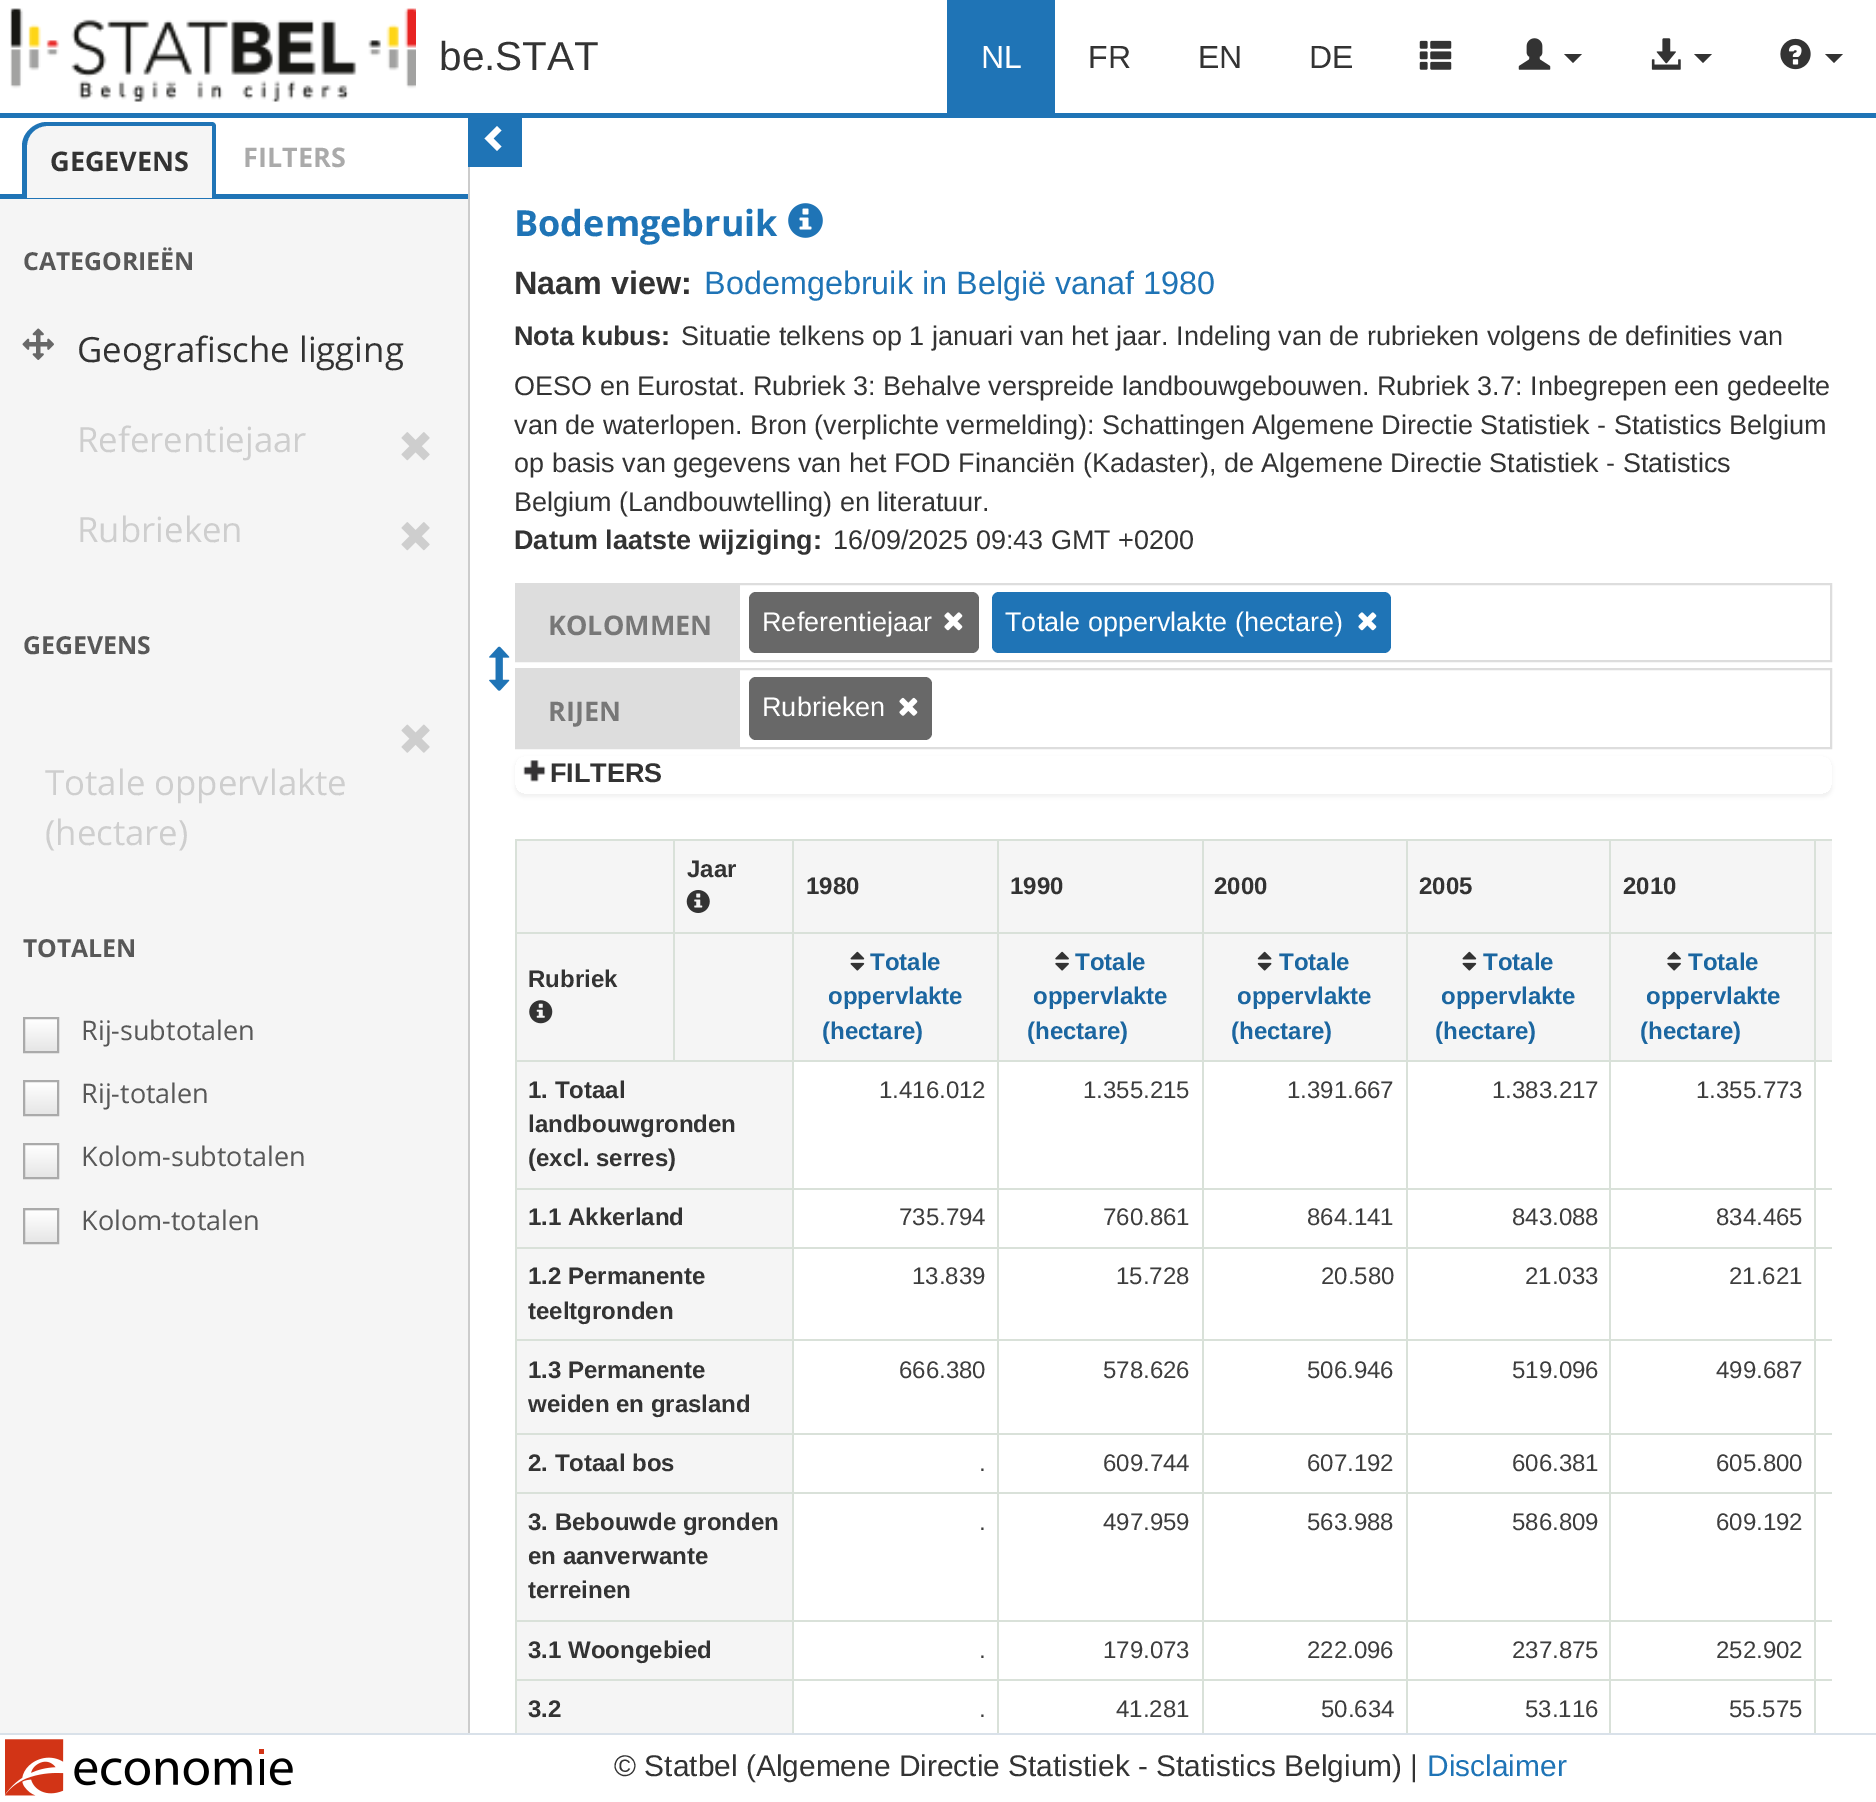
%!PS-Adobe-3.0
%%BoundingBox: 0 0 1876 1802
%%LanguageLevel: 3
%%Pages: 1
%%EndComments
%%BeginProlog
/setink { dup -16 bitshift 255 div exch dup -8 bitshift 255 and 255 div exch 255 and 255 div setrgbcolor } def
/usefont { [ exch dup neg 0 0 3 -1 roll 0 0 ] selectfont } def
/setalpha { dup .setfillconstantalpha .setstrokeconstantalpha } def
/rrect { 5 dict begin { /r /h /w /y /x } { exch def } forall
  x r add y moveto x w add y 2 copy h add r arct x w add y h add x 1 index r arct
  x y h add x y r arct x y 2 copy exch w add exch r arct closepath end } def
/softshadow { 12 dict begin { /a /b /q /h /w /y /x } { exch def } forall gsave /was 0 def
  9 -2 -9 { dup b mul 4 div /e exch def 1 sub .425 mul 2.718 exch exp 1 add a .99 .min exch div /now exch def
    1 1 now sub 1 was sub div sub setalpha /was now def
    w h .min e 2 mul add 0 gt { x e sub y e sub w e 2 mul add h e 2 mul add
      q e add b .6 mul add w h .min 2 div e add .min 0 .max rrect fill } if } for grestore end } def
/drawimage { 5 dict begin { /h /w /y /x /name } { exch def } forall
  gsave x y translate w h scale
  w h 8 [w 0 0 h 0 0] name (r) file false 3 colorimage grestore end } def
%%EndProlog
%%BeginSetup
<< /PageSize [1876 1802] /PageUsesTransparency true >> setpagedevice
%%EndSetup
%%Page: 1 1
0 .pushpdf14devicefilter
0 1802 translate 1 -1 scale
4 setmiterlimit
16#FFFFFF setink
0 0 1876 1802 rectfill
16#1F74B6 setink
0 113 1876 5 rectfill
(img1.raw) 10 8 406 94 drawimage
/LiberationSans-Regular 40.5 usefont
16#333333 setink
439 70 moveto (be.STAT) show
16#1F74B6 setink
947 0 108 113 rectfill
/LiberationSans-Regular 32 usefont
16#FFFFFF setink
981 68 moveto (NL) show
16#333333 setink
[
    [(FR) 1088 68]
    [(EN) 1198 68]
    [(DE) 1309 68]
] { aload pop moveto show } forall
(img2.raw) 1419 40 33 30 drawimage
(img3.raw) 1518 38 33 32 drawimage
1564 54 moveto 1582 54 lineto 1573 63 lineto closepath fill
(img4.raw) 1651 38 30 32 drawimage
1694 54 moveto 1712 54 lineto 1703 63 lineto closepath fill
(img5.raw) 1780 38 31 32 drawimage
1825 54 moveto 1843 54 lineto 1834 63 lineto closepath fill
[
    [0 199 468 1534 16#F5F5F5]
    [468 167 2 1566 16#CCCCCC]
    [0 194 468 5 16#1F74B6]
] { aload pop setink rectfill } forall
16#F5F5F5 setink
48 122 moveto 211 122 lineto 214 122 216 124 216 127 curveto 216 198 lineto 23 198 lineto 23 147 lineto 23 133 34 122 48 122 curveto closepath fill
16#1F74B6 setink
47 122 moveto 212 122 lineto 214 122 216 124 216 126 curveto 216 198 lineto 22 198 lineto 22 146 lineto 22 133 34 122 47 122 curveto closepath 47 126 moveto 212 126 lineto 212 198 lineto 27 198 lineto 27 146 lineto 27 135 36 126 47 126 curveto closepath eofill
/OpenSans-Bold 27 usefont
16#333333 setink
50 171 moveto (GEGEVENS) show
16#AAAAAA setink
243 167 moveto (FILTERS) show
/OpenSans-Bold 24.75 usefont
16#585858 setink
23 270 moveto (CATEGORIEËN) show
(img6.raw) 22 328 32 32 drawimage
/OpenSans-Regular 34.75 usefont
16#333333 setink
77 362 moveto (Geografische ligging) show
16#CECECE setink
77 452 moveto (Referentiejaar) show
(img7.raw) 401 432 29 29 drawimage
77 542 moveto (Rubrieken) show
(img7.raw) 401 522 29 29 drawimage
/OpenSans-Bold 24.75 usefont
16#585858 setink
23 654 moveto (GEGEVENS) show
(img8.raw) 401 724 29 29 drawimage
/OpenSans-Regular 34.75 usefont
16#CECECE setink
45 795 moveto (Totale oppervlakte) show
45 845 moveto (\(hectare\)) show
/OpenSans-Bold 24.75 usefont
16#585858 setink
23 957 moveto (TOTALEN) show
gsave 25 1019 moveto 57 1019 lineto 57 1051 lineto 25 1051 lineto closepath clip newpath
<< /ShadingType 2 /ColorSpace /DeviceRGB /Coords [41 1019 41 1051] /Extend [true true] /Function << /FunctionType 2 /Domain [0 1] /C0 [1 1 1] /C1 [0.902 0.902 0.902] /N 1 >> >> shfill grestore
16#AAAAAA setink
2 setlinewidth
24 1018 34 34 rectstroke
/OpenSans-Regular 27 usefont
16#585858 setink
81 1040 moveto (Rij-subtotalen) show
gsave 25 1082 moveto 57 1082 lineto 57 1114 lineto 25 1114 lineto closepath clip newpath
<< /ShadingType 2 /ColorSpace /DeviceRGB /Coords [41 1082 41 1114] /Extend [true true] /Function << /FunctionType 2 /Domain [0 1] /C0 [1 1 1] /C1 [0.902 0.902 0.902] /N 1 >> >> shfill grestore
16#AAAAAA setink
24 1081 34 34 rectstroke
16#585858 setink
81 1103 moveto (Rij-totalen) show
gsave 25 1145 moveto 57 1145 lineto 57 1177 lineto 25 1177 lineto closepath clip newpath
<< /ShadingType 2 /ColorSpace /DeviceRGB /Coords [41 1145 41 1177] /Extend [true true] /Function << /FunctionType 2 /Domain [0 1] /C0 [1 1 1] /C1 [0.902 0.902 0.902] /N 1 >> >> shfill grestore
16#AAAAAA setink
24 1144 34 34 rectstroke
16#585858 setink
81 1166 moveto (Kolom-subtotalen) show
gsave 25 1211 moveto 57 1211 lineto 57 1242 lineto 25 1242 lineto closepath clip newpath
<< /ShadingType 2 /ColorSpace /DeviceRGB /Coords [41 1211 41 1242] /Extend [true true] /Function << /FunctionType 2 /Domain [0 1] /C0 [1 1 1] /C1 [0.902 0.902 0.902] /N 1 >> >> shfill grestore
16#AAAAAA setink
24 1209 34 34 rectstroke
16#585858 setink
81 1230 moveto (Kolom-totalen) show
16#1F74B6 setink
468 118 54 49 rectfill
16#FFFFFF setink
501.5 130.5 moveto 493.5 138.5 lineto 501.5 146.5 lineto 497 151 lineto 484.5 138.5 lineto 497 126 lineto closepath fill
/OpenSans-Bold 36 usefont
16#1F74B6 setink
514 236 moveto (Bodemgebruik) show
(img9.raw) 788 203 35 35 drawimage
/LiberationSans-Bold 32.4 usefont
16#333333 setink
514 294 moveto (Naam view:) show
/LiberationSans-Regular 32.4 usefont
16#1F74B6 setink
704 294 moveto (Bodemgebruik in België vanaf 1980) show
/LiberationSans-Bold 27 usefont
16#333333 setink
514 345 moveto (Nota kubus:) show
/LiberationSans-Regular 27 usefont
[
    [(Situatie telkens op 1 januari van het jaar. Indeling van de rubrieken volgens de definities van) 681 345]
    [(OESO en Eurostat. Rubriek 3: Behalve verspreide landbouwgebouwen. Rubriek 3.7: Inbegrepen een gedeelte) 514 395]
    [(van de waterlopen. Bron \(verplichte vermelding\): Schattingen Algemene Directie Statistiek - Statistics Belgium) 514 434]
    [(op basis van gegevens van het FOD Financiën \(Kadaster\), de Algemene Directie Statistiek - Statistics) 514 472]
    [(Belgium \(Landbouwtelling\) en literatuur.) 514 511]
] { aload pop moveto show } forall
/LiberationSans-Bold 27 usefont
514 549 moveto (Datum laatste wijziging:) show
/LiberationSans-Regular 27 usefont
833 549 moveto (16/09/2025 09:43 GMT +0200) show
(img10.raw) 489 646 21 45 drawimage
16#DDDDDD setink
516 584 1315 77 rectstroke
517 585 223 75 rectfill
/OpenSans-Bold 27 usefont
16#777777 setink
548 635 moveto (KOLOMMEN) show
16#686868 setink
749 592 230 61 7 rrect fill
/LiberationSans-Regular 27 usefont
16#FFFFFF setink
762 631 moveto (Referentiejaar) show
(img11.raw) 944 612 19 19 drawimage
16#1F74B6 setink
992 592 399 61 7 rrect fill
16#FFFFFF setink
1005 631 moveto (Totale oppervlakte \(hectare\)) show
(img12.raw) 1358 612 19 19 drawimage
16#DDDDDD setink
516 669 1315 79 rectstroke
517 670 223 77 rectfill
/OpenSans-Bold 27 usefont
16#777777 setink
548 721 moveto (RIJEN) show
16#686868 setink
749 677 183 63 7 rrect fill
/LiberationSans-Regular 27 usefont
16#FFFFFF setink
762 716 moveto (Rubrieken) show
(img13.raw) 899 697 19 19 drawimage
gsave
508 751 moveto 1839 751 lineto 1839 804 lineto 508 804 lineto closepath 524 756 moveto 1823 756 lineto 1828 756 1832 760 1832 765 curveto 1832 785 lineto 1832 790 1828 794 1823 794 curveto 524 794 lineto 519 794 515 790 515 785 curveto 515 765 lineto 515 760 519 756 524 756 curveto closepath eoclip newpath
16#000000 setink
515 758 1317 39 9 2 0.05 softshadow
grestore
(img14.raw) 523 760 23 22 drawimage
/LiberationSans-Bold 27 usefont
16#333333 setink
550 782 moveto (FILTERS) show
[
    [517 841 156 91 16#F5F5F5]
    [1814 839 18 2 16#D9E1D9]
    [1814 932 18 2 16#D9E1D9]
    [1814 1060 18 2 16#D9E1D9]
    [1814 1188 18 2 16#D9E1D9]
    [1814 1247 18 2 16#D9E1D9]
    [1814 1339 18 2 16#D9E1D9]
    [1814 1433 18 2 16#D9E1D9]
    [1814 1492 18 2 16#D9E1D9]
    [1814 1620 18 2 16#D9E1D9]
    [1814 1679 18 2 16#D9E1D9]
    [1814 1679 2 54 16#D9E1D9]
    [1609 1679 207 2 16#D9E1D9]
    [1814 1620 2 61 16#D9E1D9]
    [1609 1620 207 2 16#D9E1D9]
    [1814 1492 2 130 16#D9E1D9]
    [1609 1492 207 2 16#D9E1D9]
    [1814 1433 2 61 16#D9E1D9]
    [1609 1433 207 2 16#D9E1D9]
    [1814 1339 2 97 16#D9E1D9]
    [1609 1339 207 2 16#D9E1D9]
    [1814 1247 2 94 16#D9E1D9]
    [1609 1247 207 2 16#D9E1D9]
    [1814 1188 2 61 16#D9E1D9]
    [1609 1188 207 2 16#D9E1D9]
    [1814 1060 2 130 16#D9E1D9]
    [1609 1060 207 2 16#D9E1D9]
    [1814 932 2 130 16#D9E1D9]
    [1609 932 207 2 16#D9E1D9]
    [1814 839 2 95 16#D9E1D9]
    [1609 839 207 2 16#D9E1D9]
    [1609 1679 2 54 16#D9E1D9]
    [1406 1679 205 2 16#D9E1D9]
    [1609 1620 2 61 16#D9E1D9]
    [1406 1620 205 2 16#D9E1D9]
    [1609 1492 2 130 16#D9E1D9]
    [1406 1492 205 2 16#D9E1D9]
    [1609 1433 2 61 16#D9E1D9]
    [1406 1433 205 2 16#D9E1D9]
    [1609 1339 2 97 16#D9E1D9]
    [1406 1339 205 2 16#D9E1D9]
    [1609 1247 2 94 16#D9E1D9]
    [1406 1247 205 2 16#D9E1D9]
    [1609 1188 2 61 16#D9E1D9]
    [1406 1188 205 2 16#D9E1D9]
    [1609 1060 2 130 16#D9E1D9]
    [1406 1060 205 2 16#D9E1D9]
    [1609 932 2 130 16#D9E1D9]
    [1406 932 205 2 16#D9E1D9]
    [1609 839 2 95 16#D9E1D9]
    [1406 839 205 2 16#D9E1D9]
    [1406 1679 2 54 16#D9E1D9]
    [1202 1679 207 2 16#D9E1D9]
    [1406 1620 2 61 16#D9E1D9]
    [1202 1620 207 2 16#D9E1D9]
    [1406 1492 2 130 16#D9E1D9]
    [1202 1492 207 2 16#D9E1D9]
    [1406 1433 2 61 16#D9E1D9]
    [1202 1433 207 2 16#D9E1D9]
    [1406 1339 2 97 16#D9E1D9]
    [1202 1339 207 2 16#D9E1D9]
    [1406 1247 2 94 16#D9E1D9]
    [1202 1247 207 2 16#D9E1D9]
    [1406 1188 2 61 16#D9E1D9]
    [1202 1188 207 2 16#D9E1D9]
    [1406 1060 2 130 16#D9E1D9]
    [1202 1060 207 2 16#D9E1D9]
    [1406 932 2 130 16#D9E1D9]
    [1202 932 207 2 16#D9E1D9]
    [1406 839 2 95 16#D9E1D9]
    [1202 839 207 2 16#D9E1D9]
    [1202 1679 2 54 16#D9E1D9]
    [997 1679 207 2 16#D9E1D9]
    [1202 1620 2 61 16#D9E1D9]
    [997 1620 207 2 16#D9E1D9]
    [1202 1492 2 130 16#D9E1D9]
    [997 1492 207 2 16#D9E1D9]
    [1202 1433 2 61 16#D9E1D9]
    [997 1433 207 2 16#D9E1D9]
    [1202 1339 2 97 16#D9E1D9]
    [997 1339 207 2 16#D9E1D9]
    [1202 1247 2 94 16#D9E1D9]
    [997 1247 207 2 16#D9E1D9]
    [1202 1188 2 61 16#D9E1D9]
    [997 1188 207 2 16#D9E1D9]
    [1202 1060 2 130 16#D9E1D9]
    [997 1060 207 2 16#D9E1D9]
    [1202 932 2 130 16#D9E1D9]
    [997 932 207 2 16#D9E1D9]
    [1202 839 2 95 16#D9E1D9]
    [997 839 207 2 16#D9E1D9]
    [997 1679 2 54 16#D9E1D9]
    [792 1679 207 2 16#D9E1D9]
    [997 1620 2 61 16#D9E1D9]
    [792 1620 207 2 16#D9E1D9]
    [997 1492 2 130 16#D9E1D9]
    [792 1492 207 2 16#D9E1D9]
    [997 1433 2 61 16#D9E1D9]
    [792 1433 207 2 16#D9E1D9]
    [997 1339 2 97 16#D9E1D9]
    [792 1339 207 2 16#D9E1D9]
    [997 1247 2 94 16#D9E1D9]
    [792 1247 207 2 16#D9E1D9]
    [997 1188 2 61 16#D9E1D9]
    [792 1188 207 2 16#D9E1D9]
    [997 1060 2 130 16#D9E1D9]
    [792 1060 207 2 16#D9E1D9]
    [997 932 2 130 16#D9E1D9]
    [792 932 207 2 16#D9E1D9]
    [997 839 2 95 16#D9E1D9]
    [792 839 207 2 16#D9E1D9]
    [515 932 160 2 16#D9E1D9]
    [792 1679 2 54 16#D9E1D9]
    [515 1679 279 2 16#D9E1D9]
    [792 1620 2 61 16#D9E1D9]
    [515 1620 279 2 16#D9E1D9]
    [792 1492 2 130 16#D9E1D9]
    [515 1492 279 2 16#D9E1D9]
    [792 1433 2 61 16#D9E1D9]
    [515 1433 279 2 16#D9E1D9]
    [792 1339 2 97 16#D9E1D9]
    [515 1339 279 2 16#D9E1D9]
    [792 1247 2 94 16#D9E1D9]
    [515 1247 279 2 16#D9E1D9]
    [792 1188 2 61 16#D9E1D9]
    [515 1188 279 2 16#D9E1D9]
    [792 1060 2 130 16#D9E1D9]
    [515 1060 279 2 16#D9E1D9]
    [673 932 2 130 16#D9E1D9]
    [792 932 2 130 16#D9E1D9]
    [673 932 121 2 16#D9E1D9]
    [792 839 2 95 16#D9E1D9]
    [673 839 121 2 16#D9E1D9]
    [673 839 2 95 16#D9E1D9]
    [515 839 160 2 16#D9E1D9]
    [515 1679 2 54 16#D9E1D9]
    [515 1620 2 61 16#D9E1D9]
    [515 1492 2 130 16#D9E1D9]
    [515 1433 2 61 16#D9E1D9]
    [515 1339 2 97 16#D9E1D9]
    [515 1247 2 94 16#D9E1D9]
    [515 1188 2 61 16#D9E1D9]
    [515 1060 2 130 16#D9E1D9]
    [515 932 2 130 16#D9E1D9]
    [515 839 2 95 16#D9E1D9]
    [675 841 117 91 16#F5F5F5]
] { aload pop setink rectfill } forall
/LiberationSans-Bold 24 usefont
16#333333 setink
687 877 moveto (Jaar) show
(img15.raw) 686 890 24 23 drawimage
16#F5F5F5 setink
1816 841 16 91 rectfill
794 841 203 91 rectfill
16#333333 setink
806 894 moveto (1980) show
16#F5F5F5 setink
999 841 203 91 rectfill
16#333333 setink
1010 894 moveto (1990) show
16#F5F5F5 setink
1204 841 202 91 rectfill
16#333333 setink
1214 894 moveto (2000) show
16#F5F5F5 setink
1408 841 201 91 rectfill
16#333333 setink
1419 894 moveto (2005) show
16#F5F5F5 setink
1611 841 203 91 rectfill
16#333333 setink
1623 894 moveto (2010) show
16#F5F5F5 setink
517 934 156 126 rectfill
16#333333 setink
528 987 moveto (Rubriek) show
(img16.raw) 529 1000 24 24 drawimage
16#F5F5F5 setink
675 934 117 126 rectfill
794 934 203 126 rectfill
(img17.raw) 850 951 15 20 drawimage
16#1B66A0 setink
[
    [(Totale) 870 970]
    [(oppervlakte) 828 1004]
    [(\(hectare\)) 822 1039]
] { aload pop moveto show } forall
16#F5F5F5 setink
999 934 203 126 rectfill
(img18.raw) 1055 951 14 20 drawimage
16#1B66A0 setink
[
    [(Totale) 1075 970]
    [(oppervlakte) 1033 1004]
    [(\(hectare\)) 1027 1039]
] { aload pop moveto show } forall
16#F5F5F5 setink
1204 934 202 126 rectfill
(img19.raw) 1257 951 15 20 drawimage
16#1B66A0 setink
[
    [(Totale) 1279 970]
    [(oppervlakte) 1237 1004]
    [(\(hectare\)) 1231 1039]
] { aload pop moveto show } forall
16#F5F5F5 setink
1408 934 201 126 rectfill
(img17.raw) 1462 951 15 20 drawimage
16#1B66A0 setink
[
    [(Totale) 1483 970]
    [(oppervlakte) 1441 1004]
    [(\(hectare\)) 1435 1039]
] { aload pop moveto show } forall
16#F5F5F5 setink
1611 934 203 126 rectfill
(img18.raw) 1667 951 14 20 drawimage
16#1B66A0 setink
[
    [(Totale) 1688 970]
    [(oppervlakte) 1646 1004]
    [(\(hectare\)) 1640 1039]
] { aload pop moveto show } forall
16#F5F5F5 setink
1816 934 16 126 rectfill
517 1062 275 126 rectfill
16#333333 setink
[
    [(1. Totaal) 528 1098]
    [(landbouwgronden) 528 1132]
    [(\(excl. serres\)) 528 1166]
] { aload pop moveto show } forall
/LiberationSans-Regular 24 usefont
16#3D3D3D setink
[
    [(1.416.012) 879 1098]
    [(1.355.215) 1083 1098]
    [(1.391.667) 1287 1098]
    [(1.383.217) 1492 1098]
    [(1.355.773) 1696 1098]
] { aload pop moveto show } forall
16#F5F5F5 setink
517 1190 275 57 rectfill
/LiberationSans-Bold 24 usefont
16#333333 setink
528 1225 moveto (1.1 Akkerland) show
/LiberationSans-Regular 24 usefont
16#3D3D3D setink
[
    [(735.794) 899 1225]
    [(760.861) 1103 1225]
    [(864.141) 1307 1225]
    [(843.088) 1512 1225]
    [(834.465) 1716 1225]
] { aload pop moveto show } forall
16#F5F5F5 setink
517 1249 275 90 rectfill
/LiberationSans-Bold 24 usefont
16#333333 setink
528 1284 moveto (1.2 Permanente) show
528 1319 moveto (teeltgronden) show
/LiberationSans-Regular 24 usefont
16#3D3D3D setink
[
    [(13.839) 912 1284]
    [(15.728) 1116 1284]
    [(20.580) 1321 1284]
    [(21.033) 1525 1284]
    [(21.621) 1729 1284]
] { aload pop moveto show } forall
16#F5F5F5 setink
517 1341 275 92 rectfill
/LiberationSans-Bold 24 usefont
16#333333 setink
528 1378 moveto (1.3 Permanente) show
528 1412 moveto (weiden en grasland) show
/LiberationSans-Regular 24 usefont
16#3D3D3D setink
[
    [(666.380) 899 1378]
    [(578.626) 1103 1378]
    [(506.946) 1307 1378]
    [(519.096) 1512 1378]
    [(499.687) 1716 1378]
] { aload pop moveto show } forall
16#F5F5F5 setink
517 1435 275 57 rectfill
/LiberationSans-Bold 24 usefont
16#333333 setink
528 1471 moveto (2. Totaal bos) show
/LiberationSans-Regular 24 usefont
16#3D3D3D setink
[
    [(.) 979 1471]
    [(609.744) 1103 1471]
    [(607.192) 1307 1471]
    [(606.381) 1512 1471]
    [(605.800) 1716 1471]
] { aload pop moveto show } forall
16#F5F5F5 setink
517 1494 275 126 rectfill
/LiberationSans-Bold 24 usefont
16#333333 setink
[
    [(3. Bebouwde gronden) 528 1530]
    [(en aanverwante) 528 1564]
    [(terreinen) 528 1598]
] { aload pop moveto show } forall
/LiberationSans-Regular 24 usefont
16#3D3D3D setink
[
    [(.) 979 1530]
    [(497.959) 1103 1530]
    [(563.988) 1307 1530]
    [(586.809) 1512 1530]
    [(609.192) 1716 1530]
] { aload pop moveto show } forall
16#F5F5F5 setink
517 1622 275 57 rectfill
/LiberationSans-Bold 24 usefont
16#333333 setink
528 1658 moveto (3.1 Woongebied) show
/LiberationSans-Regular 24 usefont
16#3D3D3D setink
[
    [(.) 979 1658]
    [(179.073) 1103 1658]
    [(222.096) 1307 1658]
    [(237.875) 1512 1658]
    [(252.902) 1716 1658]
] { aload pop moveto show } forall
16#F5F5F5 setink
517 1681 275 52 rectfill
/LiberationSans-Bold 24 usefont
16#333333 setink
528 1717 moveto (3.2) show
/LiberationSans-Regular 24 usefont
16#3D3D3D setink
[
    [(.) 979 1717]
    [(41.281) 1116 1717]
    [(50.634) 1321 1717]
    [(53.116) 1525 1717]
    [(55.575) 1729 1717]
] { aload pop moveto show } forall
16#D9E1E9 setink
0 1733 1876 2 rectfill
(img20.raw) 5 1739 288 57 drawimage
/LiberationSans-Regular 29.9 usefont
16#333333 setink
614 1776 moveto (© Statbel \(Algemene Directie Statistiek - Statistics Belgium\) |) show
16#1F74B6 setink
1427 1776 moveto (Disclaimer) show
.poppdf14devicefilter showpage
%%EOF
